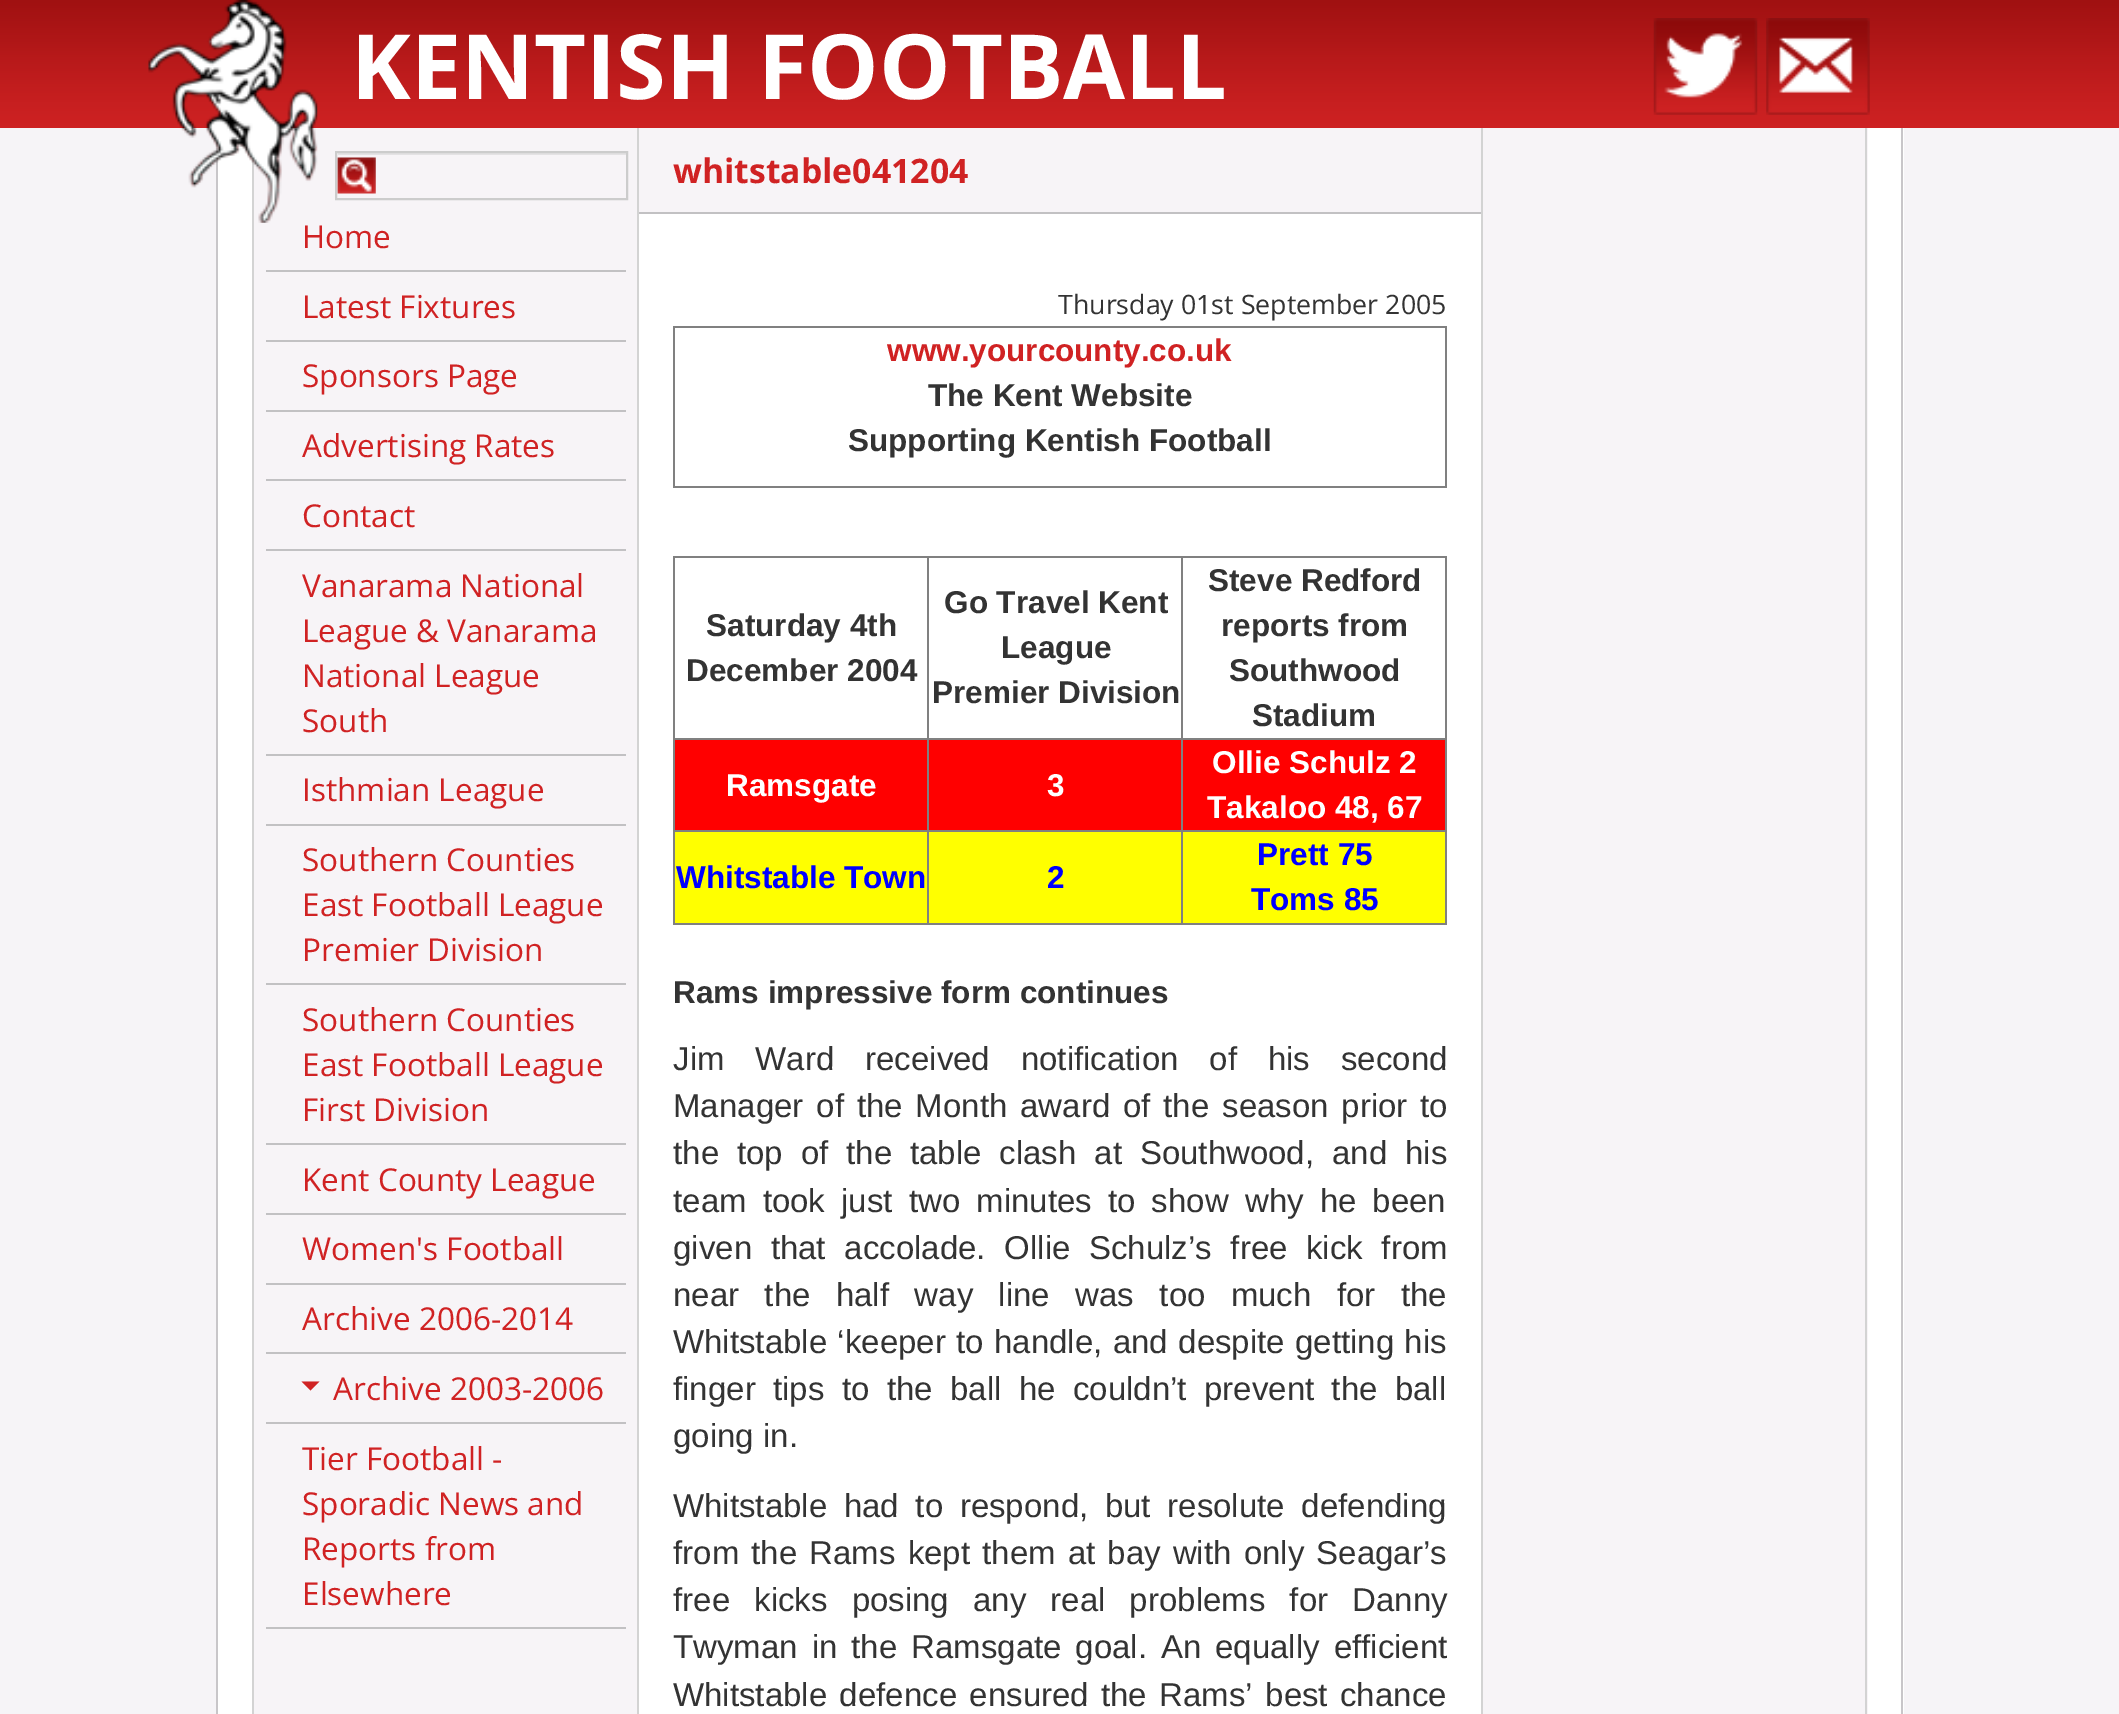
%!PS-Adobe-3.0
%%BoundingBox: 0 0 2119 1714
%%LanguageLevel: 3
%%Pages: 1
%%EndComments
%%BeginProlog
/setink { dup -16 bitshift 255 div exch dup -8 bitshift 255 and 255 div exch 255 and 255 div setrgbcolor } def
/usefont { [ exch dup neg 0 0 3 -1 roll 0 0 ] selectfont } def
/drawimage { 5 dict begin { /h /w /y /x /name } { exch def } forall
  gsave x y translate w h scale
  w h 8 [w 0 0 h 0 0] name (r) file false 3 colorimage grestore end } def
%%EndProlog
%%BeginSetup
<< /PageSize [2119 1714] >> setpagedevice
%%EndSetup
%%Page: 1 1
0 1714 translate 1 -1 scale
4 setmiterlimit
16#FFFFFF setink
0 0 2119 1714 rectfill
(img1.raw) 0 0 2119 128 drawimage
[
    [0 128 2119 1586 16#F6F4F7]
    [218 128 1686 1586 16#FFFFFF]
    [216 138 2 1576 16#C8C6C9]
    [254 128 383 1586 16#F7F4F7]
    [252 154 2 1560 16#D3D3D3]
] { aload pop setink rectfill } forall
(img2.raw) 148 0 170 223 drawimage
/OpenSans-Bold 90 usefont
16#FFFFFF setink
351 99 moveto (KENTISH FOOTBALL) show
(img3.raw) 1653 18 105 97 drawimage
(img4.raw) 1766 18 104 97 drawimage
16#C8C6C9 setink
1901 128 2 1586 rectfill
16#D3D3D3 setink
637 128 2 1586 rectfill
(img5.raw) 337 157 39 37 drawimage
16#E4E2E4 setink
338 153 288 2 rectfill
16#CCCCCC setink
2 setlinewidth
336 152 291 47 rectstroke
16#C2C1C3 setink
266 270 360 2 rectfill
/OpenSans-Regular 31.5 usefont
16#D02223 setink
302 248 moveto (Home) show
16#C2C1C3 setink
266 340 360 2 rectfill
16#D02223 setink
302 318 moveto (Latest Fixtures) show
16#C2C1C3 setink
266 410 360 2 rectfill
16#D02223 setink
302 387 moveto (Sponsors Page) show
16#C2C1C3 setink
266 479 360 2 rectfill
16#D02223 setink
302 457 moveto (Advertising Rates) show
16#C2C1C3 setink
266 549 360 2 rectfill
16#D02223 setink
302 527 moveto (Contact) show
16#C2C1C3 setink
266 754 360 2 rectfill
16#D02223 setink
[
    [(Vanarama National) 302 597]
    [(League & Vanarama) 302 642]
    [(National League) 302 687]
    [(South) 302 732]
] { aload pop moveto show } forall
16#C2C1C3 setink
266 824 360 2 rectfill
16#D02223 setink
302 801 moveto (Isthmian League) show
16#C2C1C3 setink
266 983 360 2 rectfill
16#D02223 setink
[
    [(Southern Counties) 302 871]
    [(East Football League) 302 916]
    [(Premier Division) 302 961]
] { aload pop moveto show } forall
16#C2C1C3 setink
266 1143 360 2 rectfill
16#D02223 setink
[
    [(Southern Counties) 302 1031]
    [(East Football League) 302 1076]
    [(First Division) 302 1121]
] { aload pop moveto show } forall
16#C2C1C3 setink
266 1213 360 2 rectfill
16#D02223 setink
302 1191 moveto (Kent County League) show
16#C2C1C3 setink
266 1283 360 2 rectfill
16#D02223 setink
302 1260 moveto (Women's Football) show
16#C2C1C3 setink
266 1352 360 2 rectfill
16#D02223 setink
302 1330 moveto (Archive 2006-2014) show
16#C2C1C3 setink
266 1422 360 2 rectfill
16#D02223 setink
301.5 1381.5 moveto 319.5 1381.5 lineto 310.5 1390.5 lineto closepath fill
333 1400 moveto (Archive 2003-2006) show
16#C2C1C3 setink
266 1627 360 2 rectfill
16#D02223 setink
[
    [(Tier Football -) 302 1470]
    [(Sporadic News and) 302 1515]
    [(Reports from) 302 1560]
    [(Elsewhere) 302 1605]
] { aload pop moveto show } forall
16#F7F4F7 setink
639 128 842 84 rectfill
16#C2C1C3 setink
639 212 842 2 rectfill
/OpenSans-Bold 33.75 usefont
16#D02223 setink
673 183 moveto (whitstable041204) show
/OpenSans-Regular 26.75 usefont
16#333333 setink
1058 314 moveto (Thursday 01st September 2005) show
[
    [673 326 774 2 16#808080]
    [1445 326 2 162 16#808080]
    [673 486 774 2 16#808080]
    [673 326 2 162 16#808080]
] { aload pop setink rectfill } forall
/LiberationSans-Bold 31.5 usefont
16#D02223 setink
887 361 moveto (www.yourcounty.co.uk) show
16#333333 setink
928 406 moveto (The Kent Website) show
848 451 moveto (Supporting Kentish Football) show
[
    [673 556 774 2 16#808080]
    [1445 556 2 369 16#808080]
    [673 923 774 2 16#808080]
    [673 556 2 369 16#808080]
] { aload pop setink rectfill } forall
16#333333 setink
706 636 moveto (Saturday 4th) show
686 681 moveto (December 2004) show
[
    [1181 738 266 2 16#808080]
    [929 740 516 90 16#FF0000]
    [929 832 516 91 16#FFFF00]
    [1181 830 266 2 16#808080]
    [1181 830 2 95 16#808080]
    [927 830 257 2 16#808080]
    [1181 738 2 95 16#808080]
    [927 738 257 2 16#808080]
    [927 830 2 95 16#808080]
    [673 830 256 2 16#808080]
    [927 738 2 95 16#808080]
    [673 738 256 2 16#808080]
    [927 556 2 184 16#808080]
] { aload pop setink rectfill } forall
16#333333 setink
[
    [(Go Travel Kent) 944 613]
    [(League) 1001 658]
    [(Premier Division) 932 703]
] { aload pop moveto show } forall
16#808080 setink
1181 556 2 184 rectfill
16#333333 setink
[
    [(Steve Redford) 1208 591]
    [(reports from) 1221 636]
    [(Southwood) 1229 681]
    [(Stadium) 1252 726]
] { aload pop moveto show } forall
16#FF0000 setink
675 740 252 90 rectfill
16#FFFFFF setink
[
    [(Ramsgate) 726 796]
    [(3) 1047 796]
    [(Ollie Schulz 2) 1212 773]
    [(Takaloo 48, 67) 1207 818]
] { aload pop moveto show } forall
16#FFFF00 setink
675 832 252 91 rectfill
16#0000FF setink
[
    [(Whitstable Town) 676 888]
    [(2) 1047 888]
    [(Prett 75) 1257 865]
    [(Toms 85) 1251 910]
] { aload pop moveto show } forall
16#333333 setink
673 1003 moveto (Rams impressive form continues) show
/LiberationSans-Regular 33 usefont
673 1070 moveto 21.75 0 32 (Jim Ward received notification of his second) widthshow
673 1117 moveto 3.75 0 32 (Manager of the Month award of the season prior to) widthshow
673 1164 moveto 8.75 0 32 (the top of the table clash at Southwood, and his) widthshow
673 1212 moveto 7 0 32 (team took just two minutes to show why he been) widthshow
673 1259 moveto 9.5 0 32 (given that accolade. Ollie Schulz’s free kick from) widthshow
673 1306 moveto 16.25 0 32 (near the half way line was too much for the) widthshow
673 1353 moveto 1.25 0 32 (Whitstable ‘keeper to handle, and despite getting his) widthshow
673 1400 moveto 8.25 0 32 (finger tips to the ball he couldn’t prevent the ball) widthshow
673 1447 moveto (going in.) show
673 1517 moveto 7.5 0 32 (Whitstable had to respond, but resolute defending) widthshow
673 1564 moveto 3 0 32 (from the Rams kept them at bay with only Seagar’s) widthshow
673 1611 moveto 15 0 32 (free kicks posing any real problems for Danny) widthshow
673 1658 moveto 4.75 0 32 (Twyman in the Ramsgate goal. An equally efficient) widthshow
673 1706 moveto 3.25 0 32 (Whitstable defence ensured the Rams’ best chance) widthshow
[
    [1483 128 385 1586 16#F7F4F7]
    [1865 128 2 1586 16#D3D3D3]
    [1481 128 2 1586 16#D3D3D3]
] { aload pop setink rectfill } forall
showpage
%%EOF
